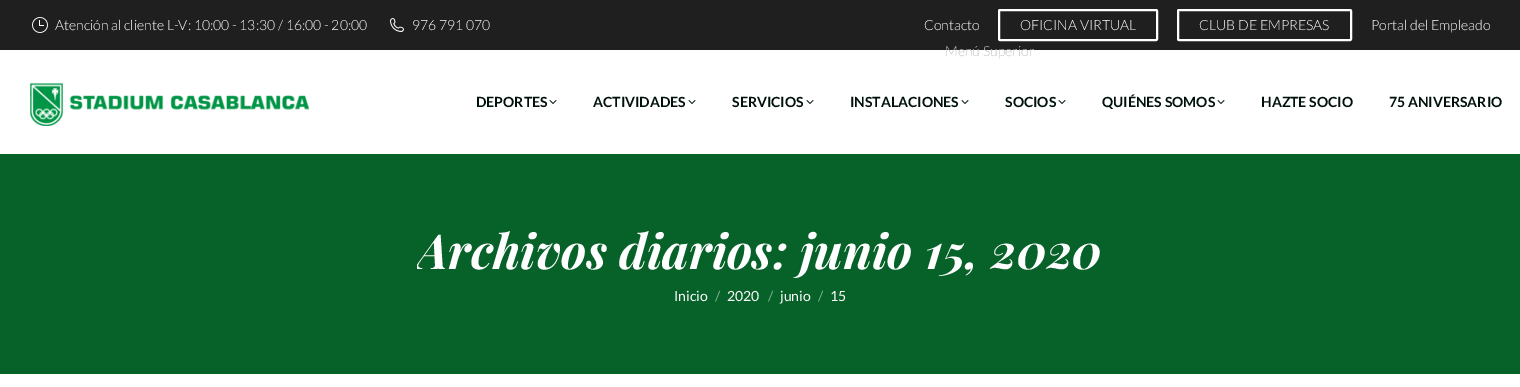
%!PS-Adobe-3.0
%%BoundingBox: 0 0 1520 387
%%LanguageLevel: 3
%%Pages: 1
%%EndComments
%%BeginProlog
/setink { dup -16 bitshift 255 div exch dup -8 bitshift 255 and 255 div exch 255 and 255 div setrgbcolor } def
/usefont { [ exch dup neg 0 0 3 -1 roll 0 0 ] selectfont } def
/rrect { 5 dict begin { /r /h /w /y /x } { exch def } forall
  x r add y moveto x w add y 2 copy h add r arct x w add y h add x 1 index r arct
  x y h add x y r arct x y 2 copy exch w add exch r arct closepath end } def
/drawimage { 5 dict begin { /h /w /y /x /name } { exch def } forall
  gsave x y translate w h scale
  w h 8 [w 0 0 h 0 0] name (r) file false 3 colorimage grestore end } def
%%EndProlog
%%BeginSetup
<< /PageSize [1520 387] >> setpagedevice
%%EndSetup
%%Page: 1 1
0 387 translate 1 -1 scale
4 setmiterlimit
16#FFFFFF setink
0 0 1520 387 rectfill
16#1F1F1F setink
0 0 1520 50 rectfill
(img1.raw) 32 17 16 16 drawimage
/Lato-Light 14 usefont
16#FFFFFF setink
55 30 moveto (Atención al cliente L-V: 10:00 - 13:30 / 16:00 - 20:00) show
(img2.raw) 390 18 14 14 drawimage
412 30 moveto (976 791 070) show
924 30 moveto (Contacto) show
2 setlinewidth
999 10 158 30 1 rrect stroke
1020 30 moveto (OFICINA VIRTUAL) show
1178 10 173 30 1 rrect stroke
1199 30 moveto (CLUB DE EMPRESAS) show
1371 30 moveto (Portal del Empleado) show
16#C4C4C4 setink
945 56 moveto (Menú Superior) show
(img3.raw) 30 82 279 44 drawimage
/Lato-Bold 14 usefont
16#00110A setink
476 107 moveto (DEPORTES) show
(img4.raw) 549 100 8 4 drawimage
593 107 moveto (ACTIVIDADES) show
(img4.raw) 688 100 8 4 drawimage
732 107 moveto (SERVICIOS) show
(img4.raw) 806 100 8 4 drawimage
850 107 moveto (INSTALACIONES) show
(img4.raw) 961 100 8 4 drawimage
1005 107 moveto (SOCIOS) show
(img4.raw) 1058 100 8 4 drawimage
1102 107 moveto (QUIÉNES SOMOS) show
(img4.raw) 1217 100 8 4 drawimage
1261 107 moveto (HAZTE SOCIO) show
1389 107 moveto (75 ANIVERSARIO) show
16#076229 setink
0 154 1520 220 rectfill
gsave
417 212 686 74 rectclip
/PlayfairDisplay-BoldItalic 48 usefont
16#FFFFFF setink
417 269 moveto (Archivos diarios: junio 15, 2020) show
grestore
/Lato-Regular 14 usefont
16#FFFFFF setink
674 301 moveto (Inicio) show
16#83B194 setink
715 301 moveto (/) show
16#FFFFFF setink
727 301 moveto (2020) show
16#83B194 setink
768 301 moveto (/) show
16#FFFFFF setink
780 301 moveto (junio) show
16#83B194 setink
818 301 moveto (/) show
16#FFFFFF setink
830 301 moveto (15) show
showpage
%%EOF
